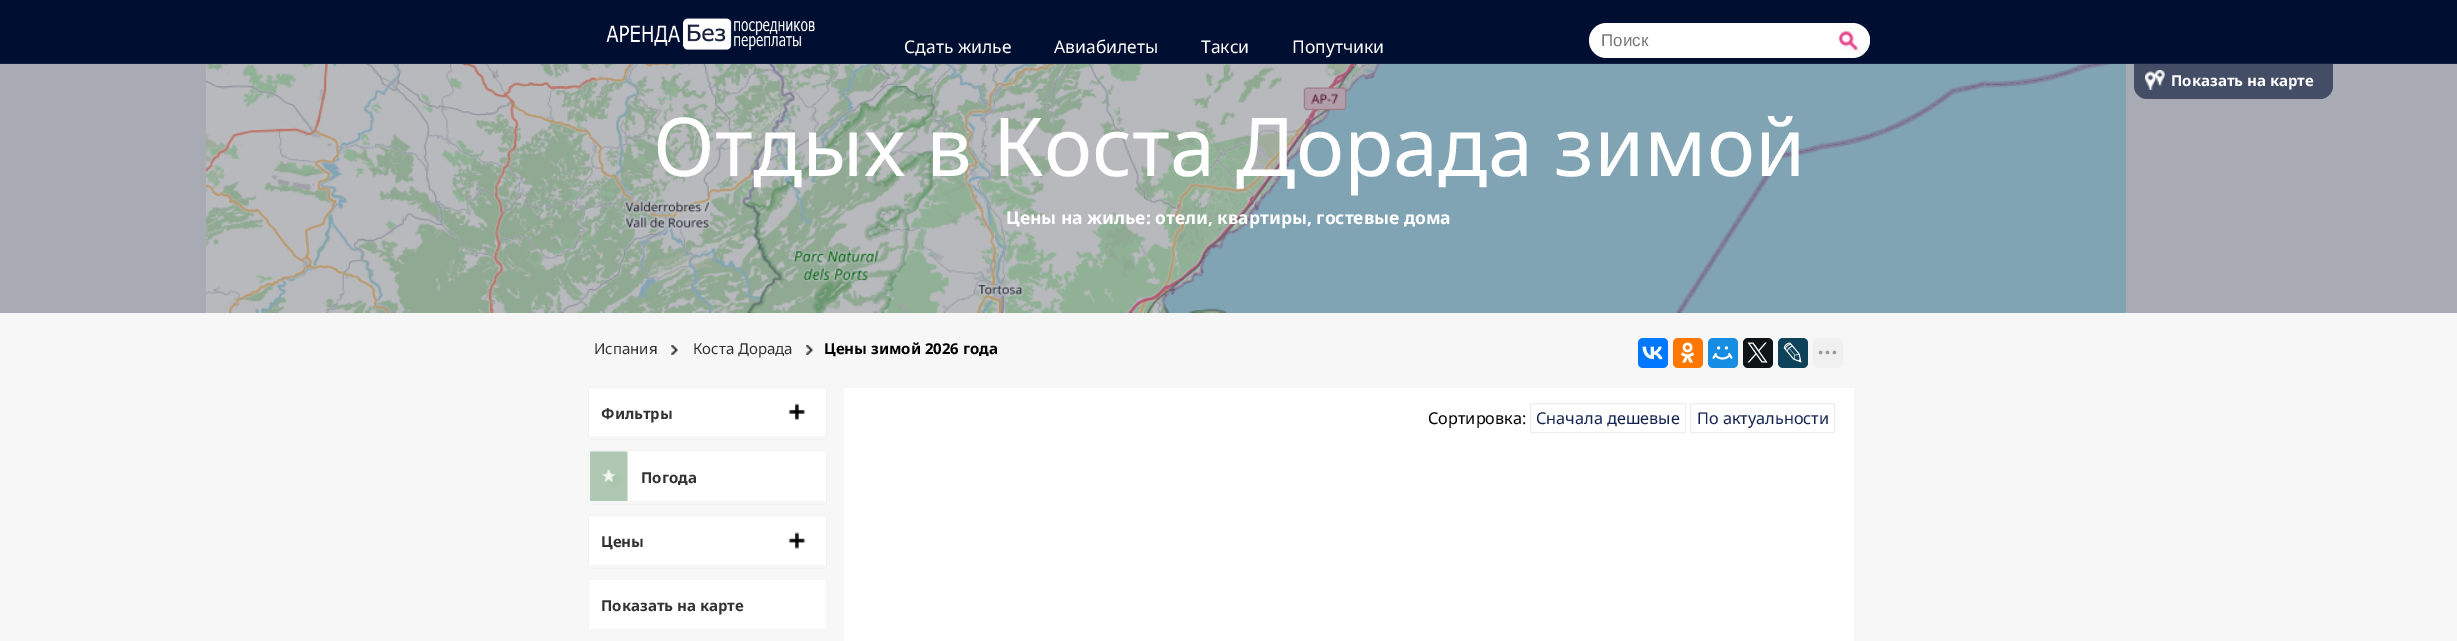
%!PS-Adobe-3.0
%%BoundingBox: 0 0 2457 641
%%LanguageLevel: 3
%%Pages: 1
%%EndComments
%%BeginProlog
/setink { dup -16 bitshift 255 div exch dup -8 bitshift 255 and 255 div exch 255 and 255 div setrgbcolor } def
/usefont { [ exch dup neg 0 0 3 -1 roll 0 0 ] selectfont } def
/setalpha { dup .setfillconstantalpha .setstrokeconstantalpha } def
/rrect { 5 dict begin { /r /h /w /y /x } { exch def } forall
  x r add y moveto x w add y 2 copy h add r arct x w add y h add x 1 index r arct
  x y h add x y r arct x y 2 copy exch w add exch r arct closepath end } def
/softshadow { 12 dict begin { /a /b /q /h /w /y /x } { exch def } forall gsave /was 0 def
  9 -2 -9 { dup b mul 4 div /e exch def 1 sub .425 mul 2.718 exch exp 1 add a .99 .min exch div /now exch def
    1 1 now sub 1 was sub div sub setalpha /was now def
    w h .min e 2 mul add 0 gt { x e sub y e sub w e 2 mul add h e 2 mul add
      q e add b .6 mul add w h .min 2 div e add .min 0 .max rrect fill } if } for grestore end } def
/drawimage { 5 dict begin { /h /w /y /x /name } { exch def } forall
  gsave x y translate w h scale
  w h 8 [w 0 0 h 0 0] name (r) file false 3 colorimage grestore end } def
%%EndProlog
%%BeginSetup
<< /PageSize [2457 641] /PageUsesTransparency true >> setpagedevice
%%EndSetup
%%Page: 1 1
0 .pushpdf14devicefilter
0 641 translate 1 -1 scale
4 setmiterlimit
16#F7F7F7 setink
0 0 2457 641 rectfill
16#000E31 setink
0 0 2457 63 rectfill
16#A8ABB4 setink
0 64 2457 249 rectfill
16#434D65 setink
2134 63 moveto 2333 63 lineto 2333 86 lineto 2333 93 2327 99 2320 99 curveto 2147 99 lineto 2140 99 2134 93 2134 86 curveto closepath fill
16#122040 setink
0 63 2457 1 rectfill
(img1.raw) 606 18 209 32 drawimage
/NotoSans-Regular 17.5 usefont
16#FFFFFF setink
[
    [(Сдать жилье) 904 53]
    [(Авиабилеты) 1054 53]
    [(Такси) 1201 53]
    [(Попутчики) 1292 53]
] { aload pop moveto show } forall
1589 23 281 35 17.5 rrect fill
(img2.raw) 1836 27 34 27 drawimage
/LiberationSans-Regular 17 usefont
16#777777 setink
1601 46 moveto (Поиск) show
(img3.raw) 2145 70 20 20 drawimage
/NotoSans-Bold 15 usefont
16#FFFFFF setink
2171 86 moveto (Показать на карте) show
(img4.raw) 206 64 320 22 drawimage
(img5.raw) 526 64 320 22 drawimage
(img6.raw) 846 64 320 22 drawimage
(img7.raw) 1166 64 320 22 drawimage
16#81A4B5 setink
1486 64 320 22 rectfill
(img8.raw) 1806 64 320 22 drawimage
(img9.raw) 206 86 320 227 drawimage
(img10.raw) 526 86 320 227 drawimage
(img11.raw) 846 86 320 227 drawimage
(img12.raw) 1166 86 320 227 drawimage
(img13.raw) 1486 86 320 227 drawimage
(img14.raw) 1806 86 320 227 drawimage
/NotoSans-Regular 81.25 usefont
16#FFFFFF setink
653 176 moveto (Отдых в Коста Дорада зимой) show
/NotoSans-Bold 17.5 usefont
1006 224 moveto (Цены на жилье: отели, квартиры, гостевые дома) show
(img15.raw) 671 345 7 10 drawimage
/NotoSans-Regular 15 usefont
16#333333 setink
594 354 moveto (Испания) show
(img15.raw) 806 345 7 10 drawimage
693 354 moveto (Коста Дорада) show
/NotoSans-Bold 15 usefont
16#000000 setink
824 354 moveto (Цены зимой 2026 года) show
16#0077FF setink
1638 338 30 30 5 rrect fill
(img16.raw) 1642 346 21 14 drawimage
16#FF7700 setink
1673 338 30 30 5 rrect fill
(img17.raw) 1680 342 15 21 drawimage
16#168DE2 setink
1708 338 30 30 5 rrect fill
(img18.raw) 1712 346 21 14 drawimage
16#0F1419 setink
1743 338 30 30 5 rrect fill
(img19.raw) 1747 342 21 21 drawimage
16#0D425A setink
1778 338 30 30 5 rrect fill
(img20.raw) 1783 342 19 21 drawimage
16#F0F0F0 setink
1813 338 30 30 5 rrect fill
(img21.raw) 1818 350 19 5 drawimage
16#032E5C setink
589 388 237 51 2.5 0.5 0.1 softshadow
16#FFFFFF setink
589 388 237 51 2.5 rrect fill
(img22.raw) 788 403 18 17 drawimage
16#F7F7F7 setink
589 436 moveto 826 436 lineto 826 436.5 lineto 826 438 825 439 823.5 439 curveto 591.5 439 lineto 590 439 589 438 589 436.5 curveto closepath fill
16#333333 setink
601 419 moveto (Фильтры) show
16#032E5C setink
589 451 237 53 2.5 0.5 0.1 softshadow
16#FFFFFF setink
589 451 237 53 2.5 rrect fill
(img23.raw) 590 451 38 53 drawimage
16#F7F7F7 setink
589 501 moveto 826 501 lineto 826 501.5 lineto 826 503 825 504 823.5 504 curveto 591.5 504 lineto 590 504 589 503 589 501.5 curveto closepath fill
16#333333 setink
641 483 moveto (Погода) show
16#032E5C setink
589 516 237 52 2.5 0.5 0.1 softshadow
16#FFFFFF setink
589 516 237 52 2.5 rrect fill
(img24.raw) 788 532 18 17 drawimage
16#F7F7F7 setink
589 565 moveto 826 565 lineto 826 565.5 lineto 826 567 825 568 823.5 568 curveto 591.5 568 lineto 590 568 589 567 589 565.5 curveto closepath fill
16#333333 setink
601 547 moveto (Цены) show
16#FFFFFF setink
589 580 237 51 2.5 rrect fill
gsave
589 580 237 51 2.5 rrect clip newpath
16#F7F7F7 setink
589 629 237 2 rectfill
grestore
16#333333 setink
601 611 moveto (Показать на карте) show
16#FFFFFF setink
844 388 1010 253 rectfill
/NotoSans-Regular 16.25 usefont
16#000000 setink
1428 424 moveto (Сортировка:) show
16#EEEEEE setink
1530.5 403.5 155 29 rectstroke
16#132451 setink
1536 424 moveto (Сначала дешевые) show
16#EEEEEE setink
1690.5 403.5 144 29 rectstroke
16#132451 setink
1697 424 moveto (По актуальности) show
.poppdf14devicefilter showpage
%%EOF
